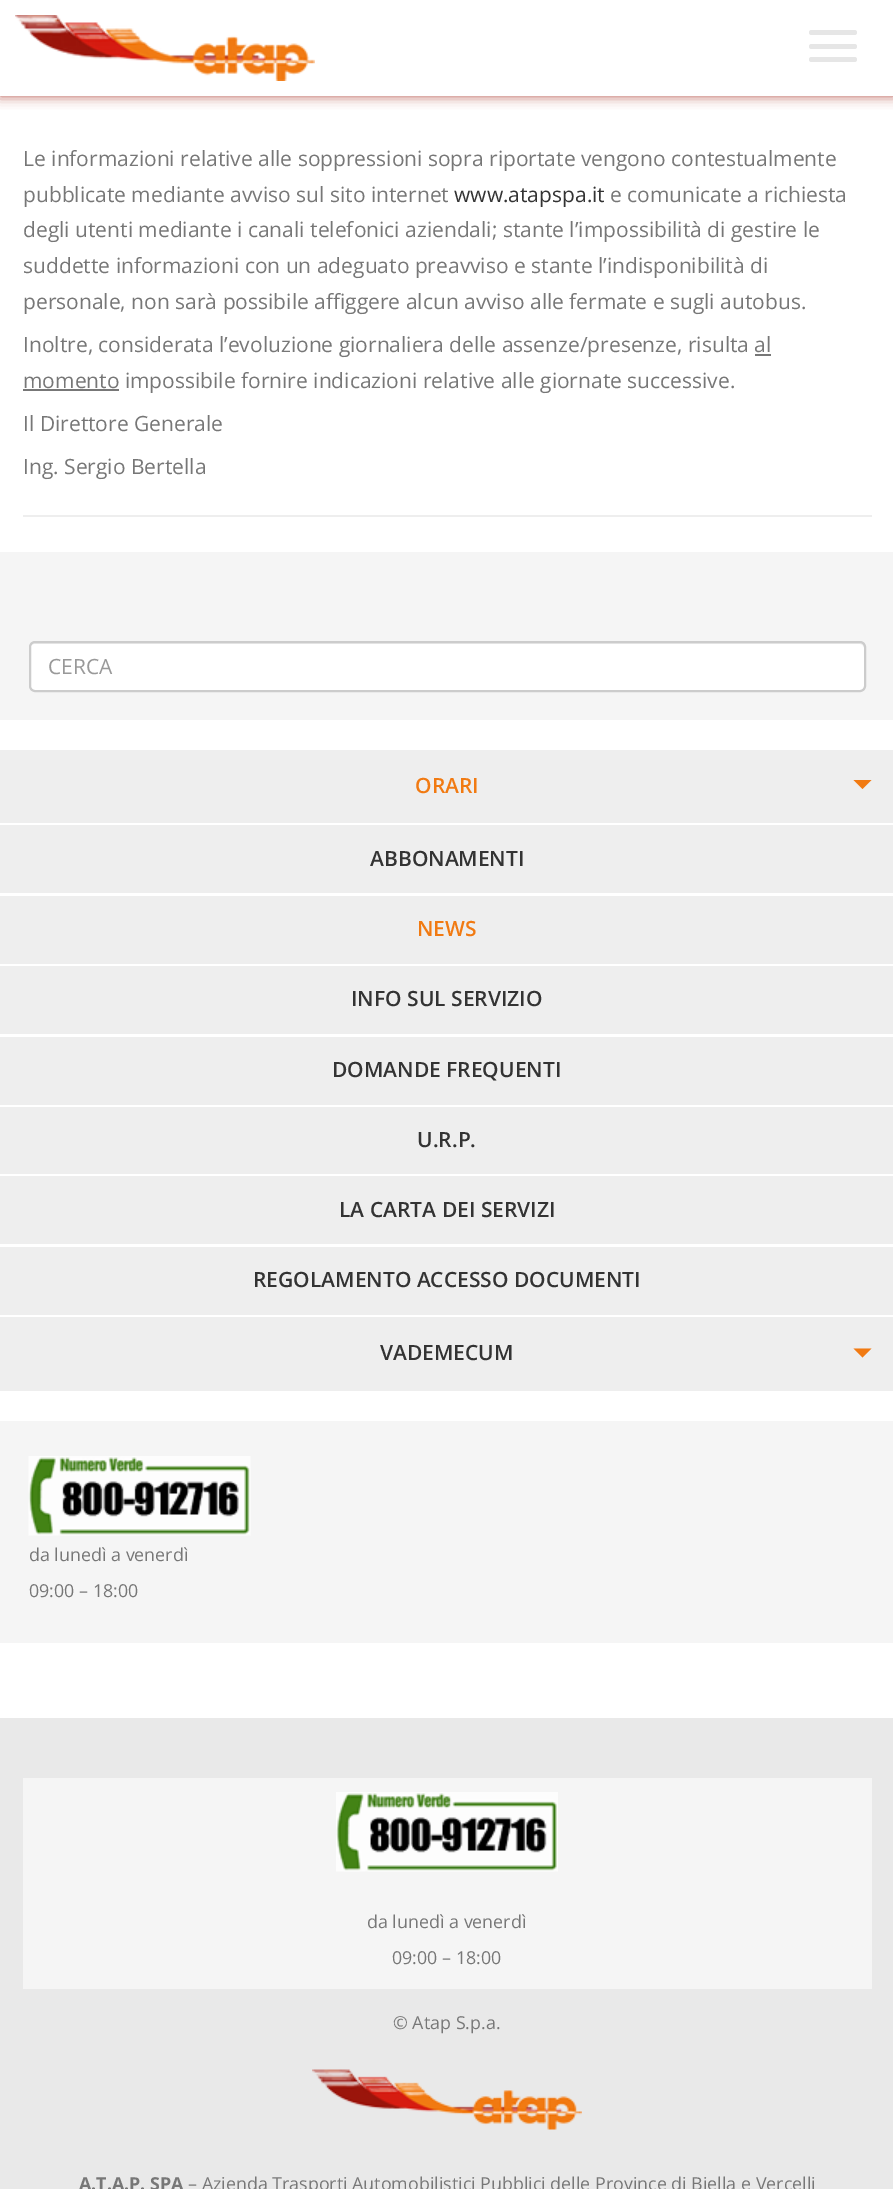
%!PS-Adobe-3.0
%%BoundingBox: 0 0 893 2189
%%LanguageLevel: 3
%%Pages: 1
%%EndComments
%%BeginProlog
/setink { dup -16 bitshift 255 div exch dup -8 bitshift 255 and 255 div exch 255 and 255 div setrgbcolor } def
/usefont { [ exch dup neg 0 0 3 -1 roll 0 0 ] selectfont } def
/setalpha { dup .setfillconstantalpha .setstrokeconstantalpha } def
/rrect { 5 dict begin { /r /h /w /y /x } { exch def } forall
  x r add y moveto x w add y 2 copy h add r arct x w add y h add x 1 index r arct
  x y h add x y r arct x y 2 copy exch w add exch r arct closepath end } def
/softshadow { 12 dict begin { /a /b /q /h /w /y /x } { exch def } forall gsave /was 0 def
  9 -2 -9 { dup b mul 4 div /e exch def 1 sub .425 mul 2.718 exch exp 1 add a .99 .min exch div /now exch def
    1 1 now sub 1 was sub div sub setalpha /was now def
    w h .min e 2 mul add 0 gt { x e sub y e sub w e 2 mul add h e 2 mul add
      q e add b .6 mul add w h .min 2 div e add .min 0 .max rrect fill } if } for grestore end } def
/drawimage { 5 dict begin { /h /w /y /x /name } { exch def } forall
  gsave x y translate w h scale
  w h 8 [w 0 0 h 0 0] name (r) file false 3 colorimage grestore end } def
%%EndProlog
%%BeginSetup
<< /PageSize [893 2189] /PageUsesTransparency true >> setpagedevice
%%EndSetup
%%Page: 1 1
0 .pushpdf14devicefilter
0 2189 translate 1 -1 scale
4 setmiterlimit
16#FFFFFF setink
0 0 893 2189 rectfill
16#9B150B setink
0 0 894 96 0 6 0.7 softshadow
16#FFFFFF setink
0 0 893 96 rectfill
(img1.raw) 15 15 300 66 drawimage
16#E6E6E6 setink
809 30 48 5 2.5 rrect fill
809 44 48 5 2.5 rrect fill
809 57 48 5 2.5 rrect fill
/OpenSans-Regular 21 usefont
16#777777 setink
23 166 moveto (Le informazioni relative alle soppressioni sopra riportate vengono contestualmente) show
23 202 moveto (pubblicate mediante avviso sul sito internet) show
16#333333 setink
454 202 moveto (www.atapspa.it) show
16#777777 setink
[
    [(e comunicate a richiesta) 610 202]
    [(degli utenti mediante i canali telefonici aziendali; stante l’impossibilità di gestire le) 23 237]
    [(suddette informazioni con un adeguato preavviso e stante l’indisponibilità di) 23 273]
    [(personale, non sarà possibile affiggere alcun avviso alle fermate e sugli autobus.) 23 309]
    [(Inoltre, considerata l’evoluzione giornaliera delle assenze/presenze, risulta al) 23 352]
] { aload pop moveto show } forall
23 389 96 2 rectfill
23 388 moveto (momento impossibile fornire indicazioni relative alle giornate successive.) show
755 354 16 2 rectfill
23 431 moveto (Il Direttore Generale) show
23 474 moveto (Ing. Sergio Bertella) show
16#EEEEEE setink
23 515 849 2 rectfill
16#F5F5F5 setink
0 552 893 168 rectfill
16#FFFFFF setink
29 641 837 51 6 rrect fill
16#ECECEC setink
34 644 moveto 860 644 lineto 862 644 864 646 864 648 curveto 864 647 lineto 864 644 862 642 859 642 curveto 35 642 lineto 32 642 30 644 30 647 curveto 30 648 lineto 30 646 32 644 34 644 curveto closepath fill
16#CCCCCC setink
2 setlinewidth
30 642 835 49 5 rrect stroke
16#999999 setink
48 674 moveto (CERCA) show
16#EEEEEE setink
0 750 893 73 rectfill
/OpenSans-SemiBold 21 usefont
16#F17A12 setink
415 793 moveto (ORARI) show
853.5 780 moveto 871.5 780 lineto 862.5 789 lineto closepath fill
16#EEEEEE setink
0 825 893 68 rectfill
16#333333 setink
370 866 moveto (ABBONAMENTI) show
16#EEEEEE setink
0 896 893 68 rectfill
16#F17A12 setink
417 936 moveto (NEWS) show
16#EEEEEE setink
0 966 893 68 rectfill
16#333333 setink
351 1006 moveto (INFO SUL SERVIZIO) show
16#EEEEEE setink
0 1037 893 68 rectfill
16#333333 setink
332 1077 moveto (DOMANDE FREQUENTI) show
16#EEEEEE setink
0 1107 893 67 rectfill
16#333333 setink
417 1147 moveto (U.R.P.) show
16#EEEEEE setink
0 1176 893 68 rectfill
16#333333 setink
339 1217 moveto (LA CARTA DEI SERVIZI) show
16#EEEEEE setink
0 1247 893 68 rectfill
16#333333 setink
253 1287 moveto (REGOLAMENTO ACCESSO DOCUMENTI) show
16#EEEEEE setink
0 1317 893 74 rectfill
16#333333 setink
380 1360 moveto (VADEMECUM) show
16#F17A12 setink
853.5 1348.5 moveto 871.5 1348.5 lineto 862.5 1357.5 lineto closepath fill
16#F5F5F5 setink
0 1421 893 222 rectfill
(img2.raw) 28 1456 223 80 drawimage
/OpenSans-Regular 17.85 usefont
16#777777 setink
29 1561 moveto (da lunedì a venerdì) show
29 1597 moveto (09:00 – 18:00) show
16#E9E9E9 setink
0 1718 893 471 rectfill
16#F5F5F5 setink
23 1778 849 211 rectfill
(img3.raw) 336 1792 222 80 drawimage
16#777777 setink
[
    [(da lunedì a venerdì) 367 1928]
    [(09:00 – 18:00) 392 1964]
    [(© Atap S.p.a.) 393 2029]
] { aload pop moveto show } forall
(img4.raw) 312 2069 270 61 drawimage
/OpenSans-Bold 17.85 usefont
79 2190 moveto (A.T.A.P. SPA) show
/OpenSans-Regular 17.85 usefont
188 2190 moveto (– Azienda Trasporti Automobilistici Pubblici delle Province di Biella e Vercelli) show
.poppdf14devicefilter showpage
%%EOF
